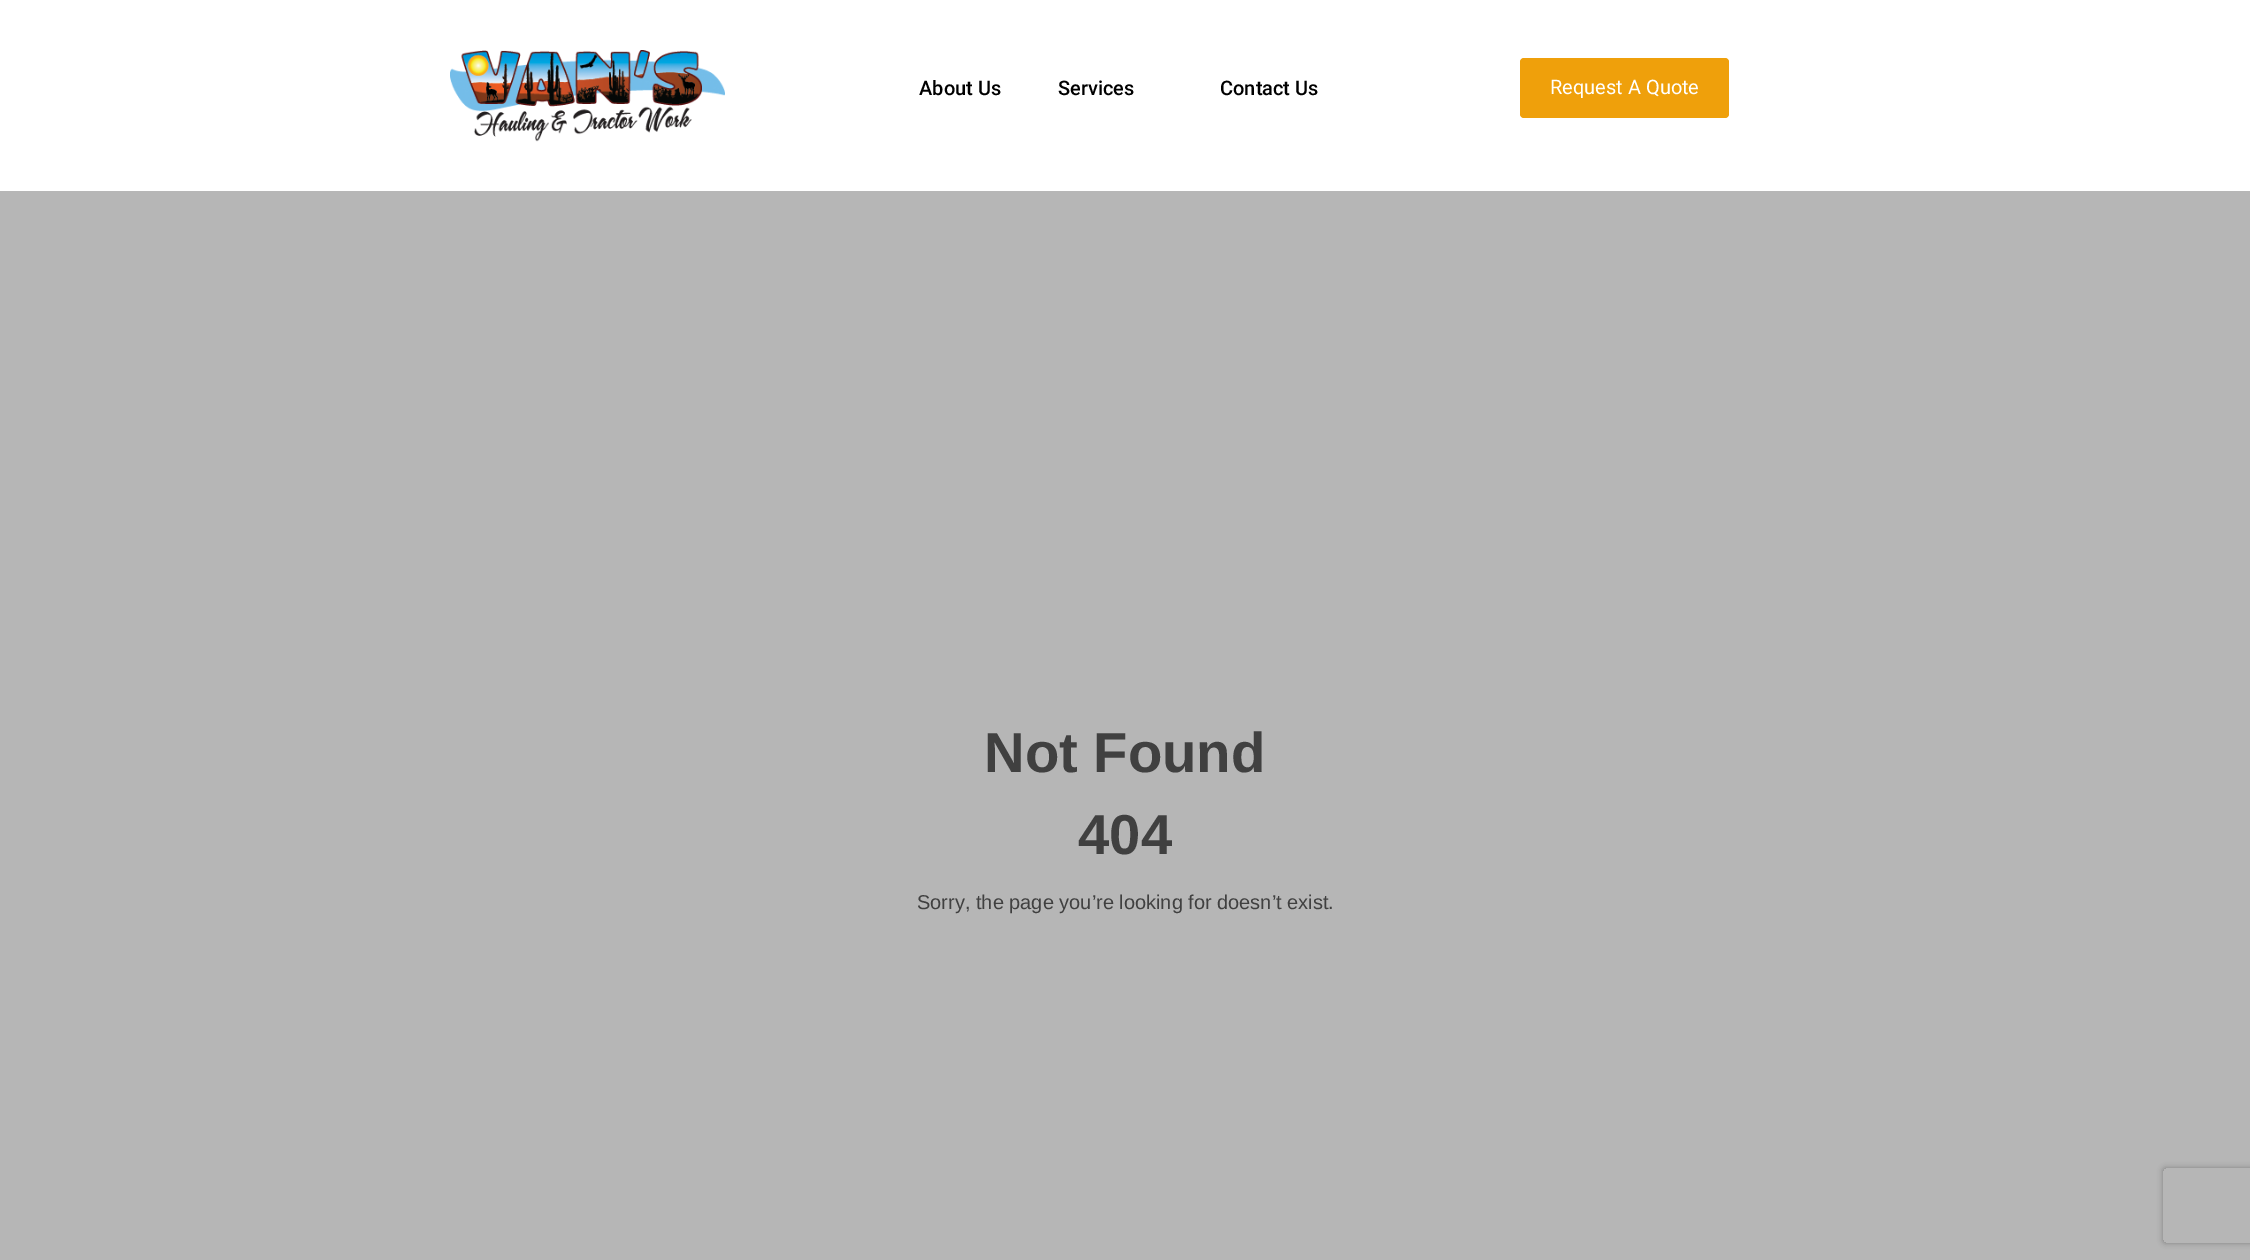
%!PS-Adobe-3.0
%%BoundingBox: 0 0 2250 1260
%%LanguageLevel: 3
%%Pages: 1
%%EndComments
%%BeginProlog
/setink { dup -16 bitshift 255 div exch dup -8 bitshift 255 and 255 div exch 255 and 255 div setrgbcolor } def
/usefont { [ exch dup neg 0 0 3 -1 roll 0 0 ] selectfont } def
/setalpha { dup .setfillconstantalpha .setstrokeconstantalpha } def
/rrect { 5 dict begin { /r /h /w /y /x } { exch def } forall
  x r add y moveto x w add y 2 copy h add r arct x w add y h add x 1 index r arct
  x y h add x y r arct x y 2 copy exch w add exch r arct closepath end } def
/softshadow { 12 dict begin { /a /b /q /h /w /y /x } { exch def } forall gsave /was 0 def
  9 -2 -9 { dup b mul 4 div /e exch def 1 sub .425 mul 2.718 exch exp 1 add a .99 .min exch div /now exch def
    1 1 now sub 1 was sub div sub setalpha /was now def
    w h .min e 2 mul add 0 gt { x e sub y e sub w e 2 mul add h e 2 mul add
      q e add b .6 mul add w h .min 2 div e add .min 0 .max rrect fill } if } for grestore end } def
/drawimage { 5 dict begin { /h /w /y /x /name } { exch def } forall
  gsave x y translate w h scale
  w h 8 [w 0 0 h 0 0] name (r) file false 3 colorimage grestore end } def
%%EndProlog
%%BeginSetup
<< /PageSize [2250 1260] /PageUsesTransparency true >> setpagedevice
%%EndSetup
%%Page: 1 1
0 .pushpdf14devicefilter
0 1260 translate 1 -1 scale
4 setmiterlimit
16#FFFFFF setink
0 0 2250 1260 rectfill
(img1.raw) 450 50 275 92 drawimage
/Roboto-Medium 20 usefont
16#000000 setink
[
    [(About Us) 919 95]
    [(Services) 1058 95]
    [(Contact Us) 1220 95]
] { aload pop moveto show } forall
16#EFA00B setink
1520 58 209 60 4 rrect fill
/Roboto-Regular 20 usefont
16#FFFFFF setink
1550 94 moveto (Request A Quote) show
16#B6B6B6 setink
0 191 2250 1069 rectfill
/LiberationSans-Bold 56.25 usefont
16#404040 setink
984 772 moveto (Not Found) show
1078 854 moveto (404) show
/LiberationSans-Regular 20 usefont
917 909 moveto (Sorry, the page you’re looking for doesn’t exist.) show
gsave
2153 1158 moveto 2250 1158 lineto 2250 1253 lineto 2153 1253 lineto closepath 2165.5 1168 moveto 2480.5 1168 lineto 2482 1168 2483 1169 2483 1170.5 curveto 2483 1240.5 lineto 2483 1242 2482 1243 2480.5 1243 curveto 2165.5 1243 lineto 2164 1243 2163 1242 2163 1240.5 curveto 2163 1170.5 lineto 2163 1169 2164 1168 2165.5 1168 curveto closepath eoclip newpath
16#808080 setink
2163 1168 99 75 2.5 3 1 softshadow
grestore
.poppdf14devicefilter showpage
%%EOF
